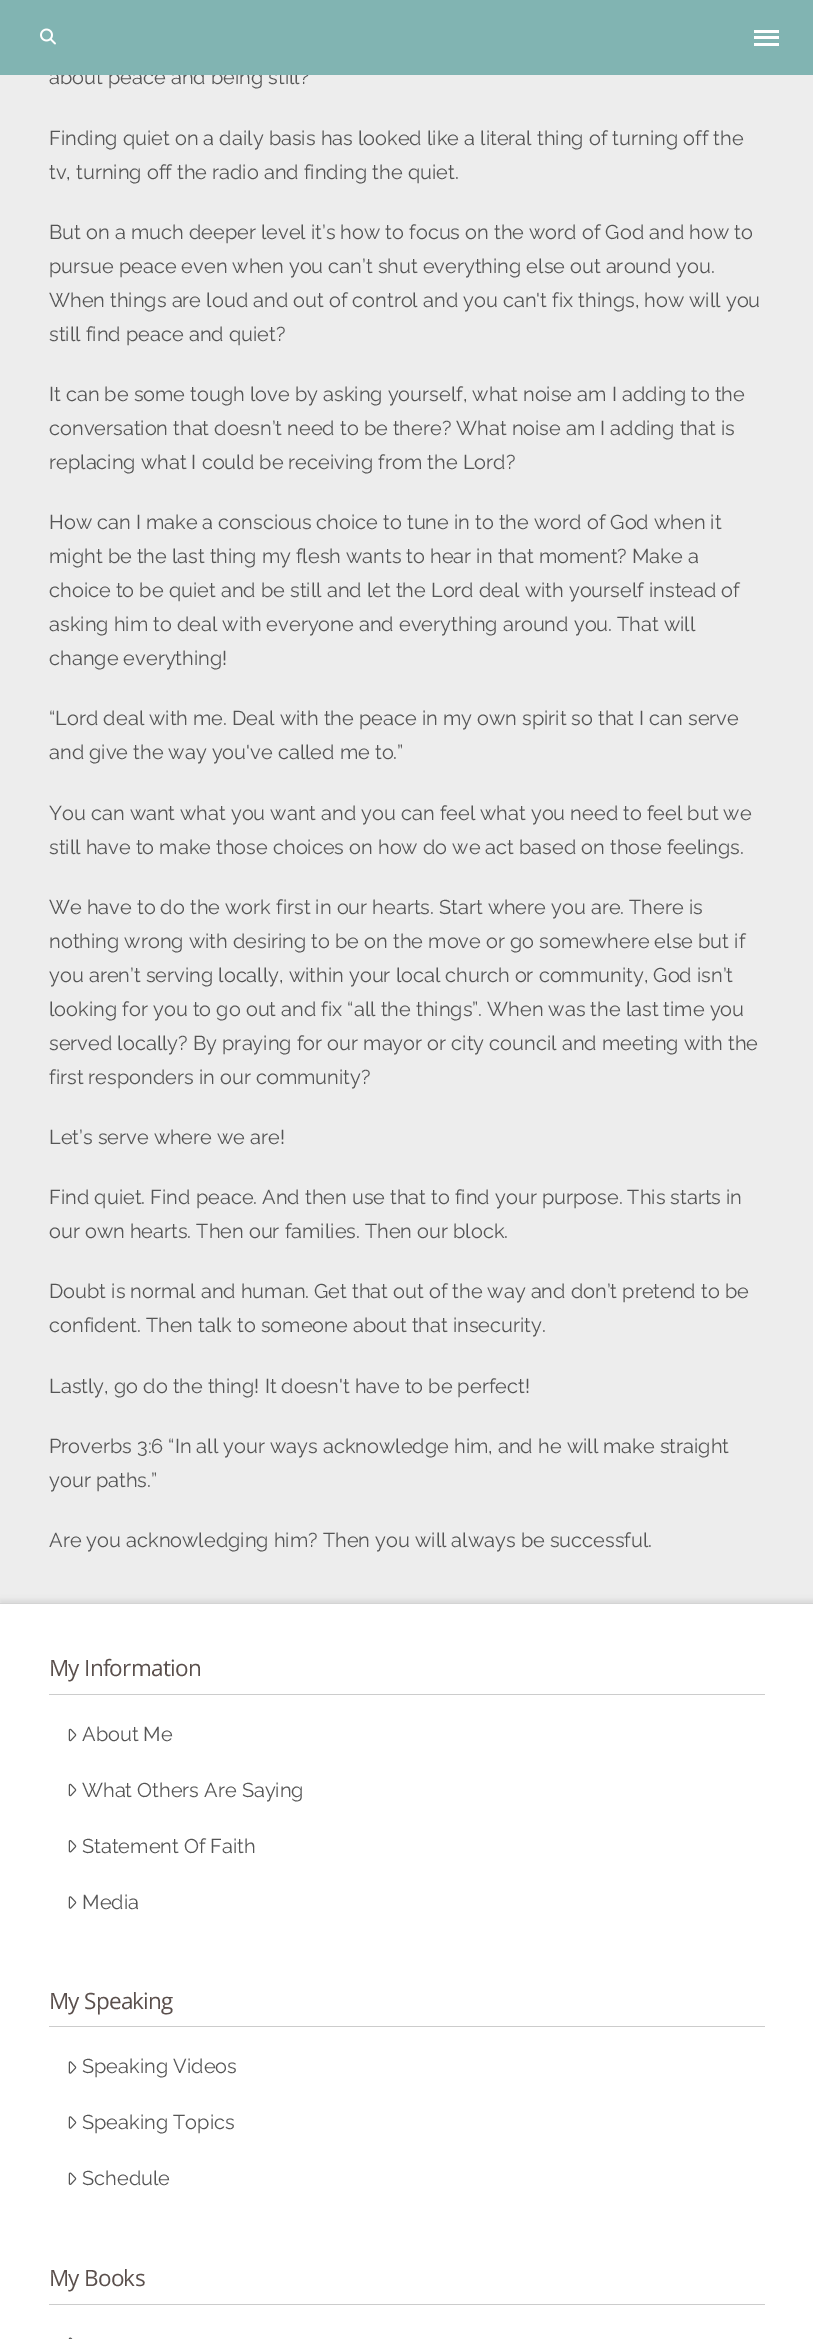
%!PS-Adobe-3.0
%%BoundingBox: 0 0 813 2339
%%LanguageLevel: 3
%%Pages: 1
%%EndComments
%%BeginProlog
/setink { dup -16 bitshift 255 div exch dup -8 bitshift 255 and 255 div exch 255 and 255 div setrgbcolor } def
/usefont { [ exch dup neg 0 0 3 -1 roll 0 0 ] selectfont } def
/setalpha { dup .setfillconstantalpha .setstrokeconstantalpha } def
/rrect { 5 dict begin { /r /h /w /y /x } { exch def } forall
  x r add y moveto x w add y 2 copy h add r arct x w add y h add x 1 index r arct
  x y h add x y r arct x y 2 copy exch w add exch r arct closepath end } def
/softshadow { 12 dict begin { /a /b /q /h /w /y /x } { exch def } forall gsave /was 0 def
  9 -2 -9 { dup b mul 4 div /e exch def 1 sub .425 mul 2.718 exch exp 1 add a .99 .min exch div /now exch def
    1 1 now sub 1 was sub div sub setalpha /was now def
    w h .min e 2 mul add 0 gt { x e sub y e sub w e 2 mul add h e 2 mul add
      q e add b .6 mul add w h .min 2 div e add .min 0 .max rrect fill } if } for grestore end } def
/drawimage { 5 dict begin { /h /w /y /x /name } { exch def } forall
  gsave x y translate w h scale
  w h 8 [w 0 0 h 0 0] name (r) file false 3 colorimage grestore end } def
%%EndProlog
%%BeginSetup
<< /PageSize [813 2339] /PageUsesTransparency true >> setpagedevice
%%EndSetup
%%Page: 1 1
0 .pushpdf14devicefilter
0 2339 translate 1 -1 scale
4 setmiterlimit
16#EDEDED setink
0 0 813 2339 rectfill
/Raleway-Regular 20 usefont
16#555555 setink
49 84 moveto (about peace and being still?) show
16#81B4B2 setink
0 0 813 75 rectfill
(img1.raw) 40 28 16 17 drawimage
[
    [754 30 25 3 16#FFFFFF]
    [754 36 25 3 16#FFFFFF]
    [754 43 25 3 16#FFFFFF]
] { aload pop setink rectfill } forall
16#555555 setink
[
    [(Finding quiet on a daily basis has looked like a literal thing of turning off the) 49 145]
    [(tv, turning off the radio and finding the quiet.) 49 179]
    [(But on a much deeper level it’s how to focus on the word of God and how to) 49 239]
    [(pursue peace even when you can’t shut everything else out around you.) 49 273]
    [(When things are loud and out of control and you can't fix things, how will you) 49 307]
    [(still find peace and quiet?) 49 341]
    [(It can be some tough love by asking yourself, what noise am I adding to the) 49 401]
    [(conversation that doesn’t need to be there? What noise am I adding that is) 49 435]
    [(replacing what I could be receiving from the Lord?) 49 469]
    [(How can I make a conscious choice to tune in to the word of God when it) 49 529]
    [(might be the last thing my flesh wants to hear in that moment? Make a) 49 563]
    [(choice to be quiet and be still and let the Lord deal with yourself instead of) 49 597]
    [(asking him to deal with everyone and everything around you. That will) 49 631]
    [(change everything!) 49 665]
    [(“Lord deal with me. Deal with the peace in my own spirit so that I can serve) 49 725]
    [(and give the way you've called me to.”) 49 759]
    [(You can want what you want and you can feel what you need to feel but we) 49 820]
    [(still have to make those choices on how do we act based on those feelings.) 49 854]
    [(We have to do the work first in our hearts. Start where you are. There is) 49 914]
    [(nothing wrong with desiring to be on the move or go somewhere else but if) 49 948]
    [(you aren’t serving locally, within your local church or community, God isn’t) 49 982]
    [(looking for you to go out and fix “all the things”. When was the last time you) 49 1016]
    [(served locally? By praying for our mayor or city council and meeting with the) 49 1050]
    [(first responders in our community?) 49 1084]
    [(Let’s serve where we are!) 49 1144]
    [(Find quiet. Find peace. And then use that to find your purpose. This starts in) 49 1204]
    [(our own hearts. Then our families. Then our block.) 49 1238]
    [(Doubt is normal and human. Get that out of the way and don’t pretend to be) 49 1298]
    [(confident. Then talk to someone about that insecurity.) 49 1332]
    [(Lastly, go do the thing! It doesn't have to be perfect!) 49 1393]
    [(Proverbs 3:6 “In all your ways acknowledge him, and he will make straight) 49 1453]
    [(your paths.”) 49 1487]
    [(Are you acknowledging him? Then you will always be successful.) 49 1547]
] { aload pop moveto show } forall
16#000000 setink
0 1600 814 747 0 2.5 0.07 softshadow
[
    [0 1604 813 735 16#FFFFFF]
    [0 1603 813 1 16#D4D4D4]
    [49 1694 716 1 16#CCCCCC]
] { aload pop setink rectfill } forall
/OpenSans-Regular 22.5 usefont
16#5A4F4C setink
49 1676 moveto -0.75 0 (My Information) ashow
(img2.raw) 68 1728 9 14 drawimage
/Raleway-Regular 20 usefont
16#555555 setink
82 1741 moveto (About Me) show
(img2.raw) 68 1783 9 14 drawimage
82 1797 moveto (What Others Are Saying) show
(img3.raw) 68 1840 9 13 drawimage
82 1853 moveto (Statement Of Faith) show
(img4.raw) 68 1896 9 13 drawimage
82 1909 moveto (Media) show
16#CCCCCC setink
49 2026 716 1 rectfill
/OpenSans-Regular 22.5 usefont
16#5A4F4C setink
49 2009 moveto -0.75 0 (My Speaking) ashow
(img4.raw) 68 2061 9 13 drawimage
/Raleway-Regular 20 usefont
16#555555 setink
82 2073 moveto (Speaking Videos) show
(img4.raw) 68 2116 9 13 drawimage
82 2129 moveto (Speaking Topics) show
(img5.raw) 68 2172 9 13 drawimage
82 2185 moveto (Schedule) show
16#CCCCCC setink
49 2304 716 1 rectfill
/OpenSans-Regular 22.5 usefont
16#5A4F4C setink
49 2286 moveto -0.75 0 (My Books) ashow
(img6.raw) 68 2337 5 2 drawimage
.poppdf14devicefilter showpage
%%EOF
